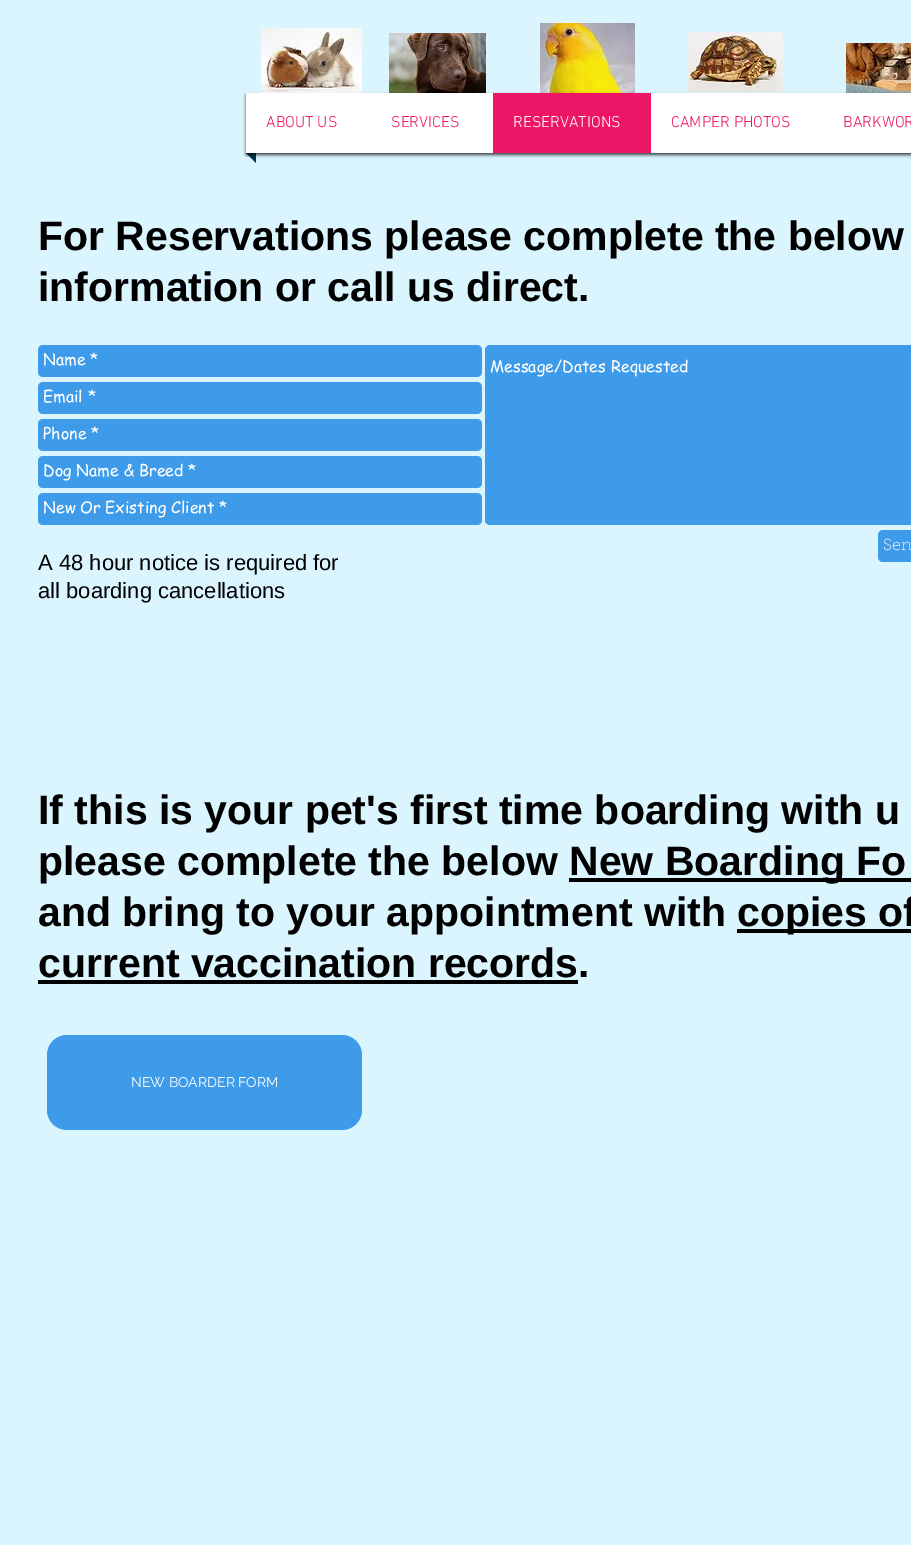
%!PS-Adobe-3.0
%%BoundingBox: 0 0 911 1545
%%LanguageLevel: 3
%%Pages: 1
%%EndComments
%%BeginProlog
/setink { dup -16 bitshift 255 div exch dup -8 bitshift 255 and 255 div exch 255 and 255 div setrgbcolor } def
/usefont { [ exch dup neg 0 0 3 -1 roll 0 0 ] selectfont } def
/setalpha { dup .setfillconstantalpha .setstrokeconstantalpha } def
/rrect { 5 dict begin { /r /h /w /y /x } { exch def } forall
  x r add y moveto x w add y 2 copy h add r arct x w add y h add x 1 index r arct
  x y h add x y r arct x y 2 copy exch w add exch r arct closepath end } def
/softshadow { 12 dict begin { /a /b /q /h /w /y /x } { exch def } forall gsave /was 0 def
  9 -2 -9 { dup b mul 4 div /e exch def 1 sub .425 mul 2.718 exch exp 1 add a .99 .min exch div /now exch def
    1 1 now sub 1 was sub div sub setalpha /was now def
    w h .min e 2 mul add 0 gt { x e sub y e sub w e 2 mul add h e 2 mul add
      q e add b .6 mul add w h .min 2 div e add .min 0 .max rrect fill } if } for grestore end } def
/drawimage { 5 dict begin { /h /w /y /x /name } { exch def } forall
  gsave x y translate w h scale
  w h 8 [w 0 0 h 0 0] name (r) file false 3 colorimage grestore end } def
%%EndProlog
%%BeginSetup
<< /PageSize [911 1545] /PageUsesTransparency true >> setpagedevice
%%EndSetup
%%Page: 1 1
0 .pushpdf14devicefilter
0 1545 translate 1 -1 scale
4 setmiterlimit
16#DBF5FF setink
0 0 911 1545 rectfill
(img1.raw) 261 28 101 65 drawimage
(img2.raw) 389 33 97 60 drawimage
(img3.raw) 540 23 95 70 drawimage
(img4.raw) 688 32 95 60 drawimage
(img5.raw) 846 43 65 50 drawimage
16#003448 setink
246 153 moveto 256 153 lineto 256 163 lineto closepath fill
16#000000 setink
246 95 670 60 0 1.5 0.7 softshadow
16#FFFFFF setink
246 93 665 60 rectfill
/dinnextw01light-Light 16 usefont
16#ED1566 setink
266 127 moveto (ABOUT US) show
391 127 moveto (SERVICES) show
493 93 158 60 rectfill
16#FFFFFF setink
513 127 moveto (RESERVATIONS) show
16#ED1566 setink
671 127 moveto (CAMPER PHOTOS) show
843 127 moveto (BARKWOR) show
/LiberationSans-Bold 41 usefont
16#000000 setink
38 250 moveto (For Reservations please complete the below) show
38 301 moveto (information or call us direct.) show
16#3D9BE9 setink
38 345 444 32 5 rrect fill
/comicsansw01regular-Regular 16 usefont
16#FFFFFF setink
43 365 moveto (Name *) show
16#3D9BE9 setink
485 345 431 180 5 rrect fill
16#FFFFFF setink
490 372 moveto (Message/Dates Requested) show
16#3D9BE9 setink
38 382 444 32 5 rrect fill
16#FFFFFF setink
43 402 moveto (Email *) show
16#3D9BE9 setink
38 419 444 32 5 rrect fill
16#FFFFFF setink
43 439 moveto (Phone *) show
16#3D9BE9 setink
38 456 444 32 5 rrect fill
16#FFFFFF setink
43 476 moveto (Dog Name & Breed *) show
16#3D9BE9 setink
38 493 444 32 5 rrect fill
16#FFFFFF setink
43 513 moveto (New Or Existing Client *) show
16#3D9BE9 setink
878 530 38 32 5 rrect fill
/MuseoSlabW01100-Thin 16 usefont
16#FFFFFF setink
883 550 moveto (Sen) show
/LiberationSans-Regular 22 usefont
16#000000 setink
38 570 moveto (A 48 hour notice is required for) show
38 598 moveto (all boarding cancellations) show
/LiberationSans-Bold 41 usefont
38 824 moveto (If this is your pet's first time boarding with u) show
38 875 moveto (please complete the below) show
569 878 342 4 rectfill
569 875 moveto (New Boarding Fo) show
38 926 moveto (and bring to your appointment with) show
737 929 174 4 rectfill
737 926 moveto (copies of) show
38 977 moveto (current vaccination records.) show
38 980 540 4 rectfill
16#3D9BE9 setink
47 1035 315 95 20 rrect fill
/Raleway-Regular 14 usefont
16#FFFFFF setink
131 1087 moveto (NEW BOARDER FORM) show
.poppdf14devicefilter showpage
%%EOF
